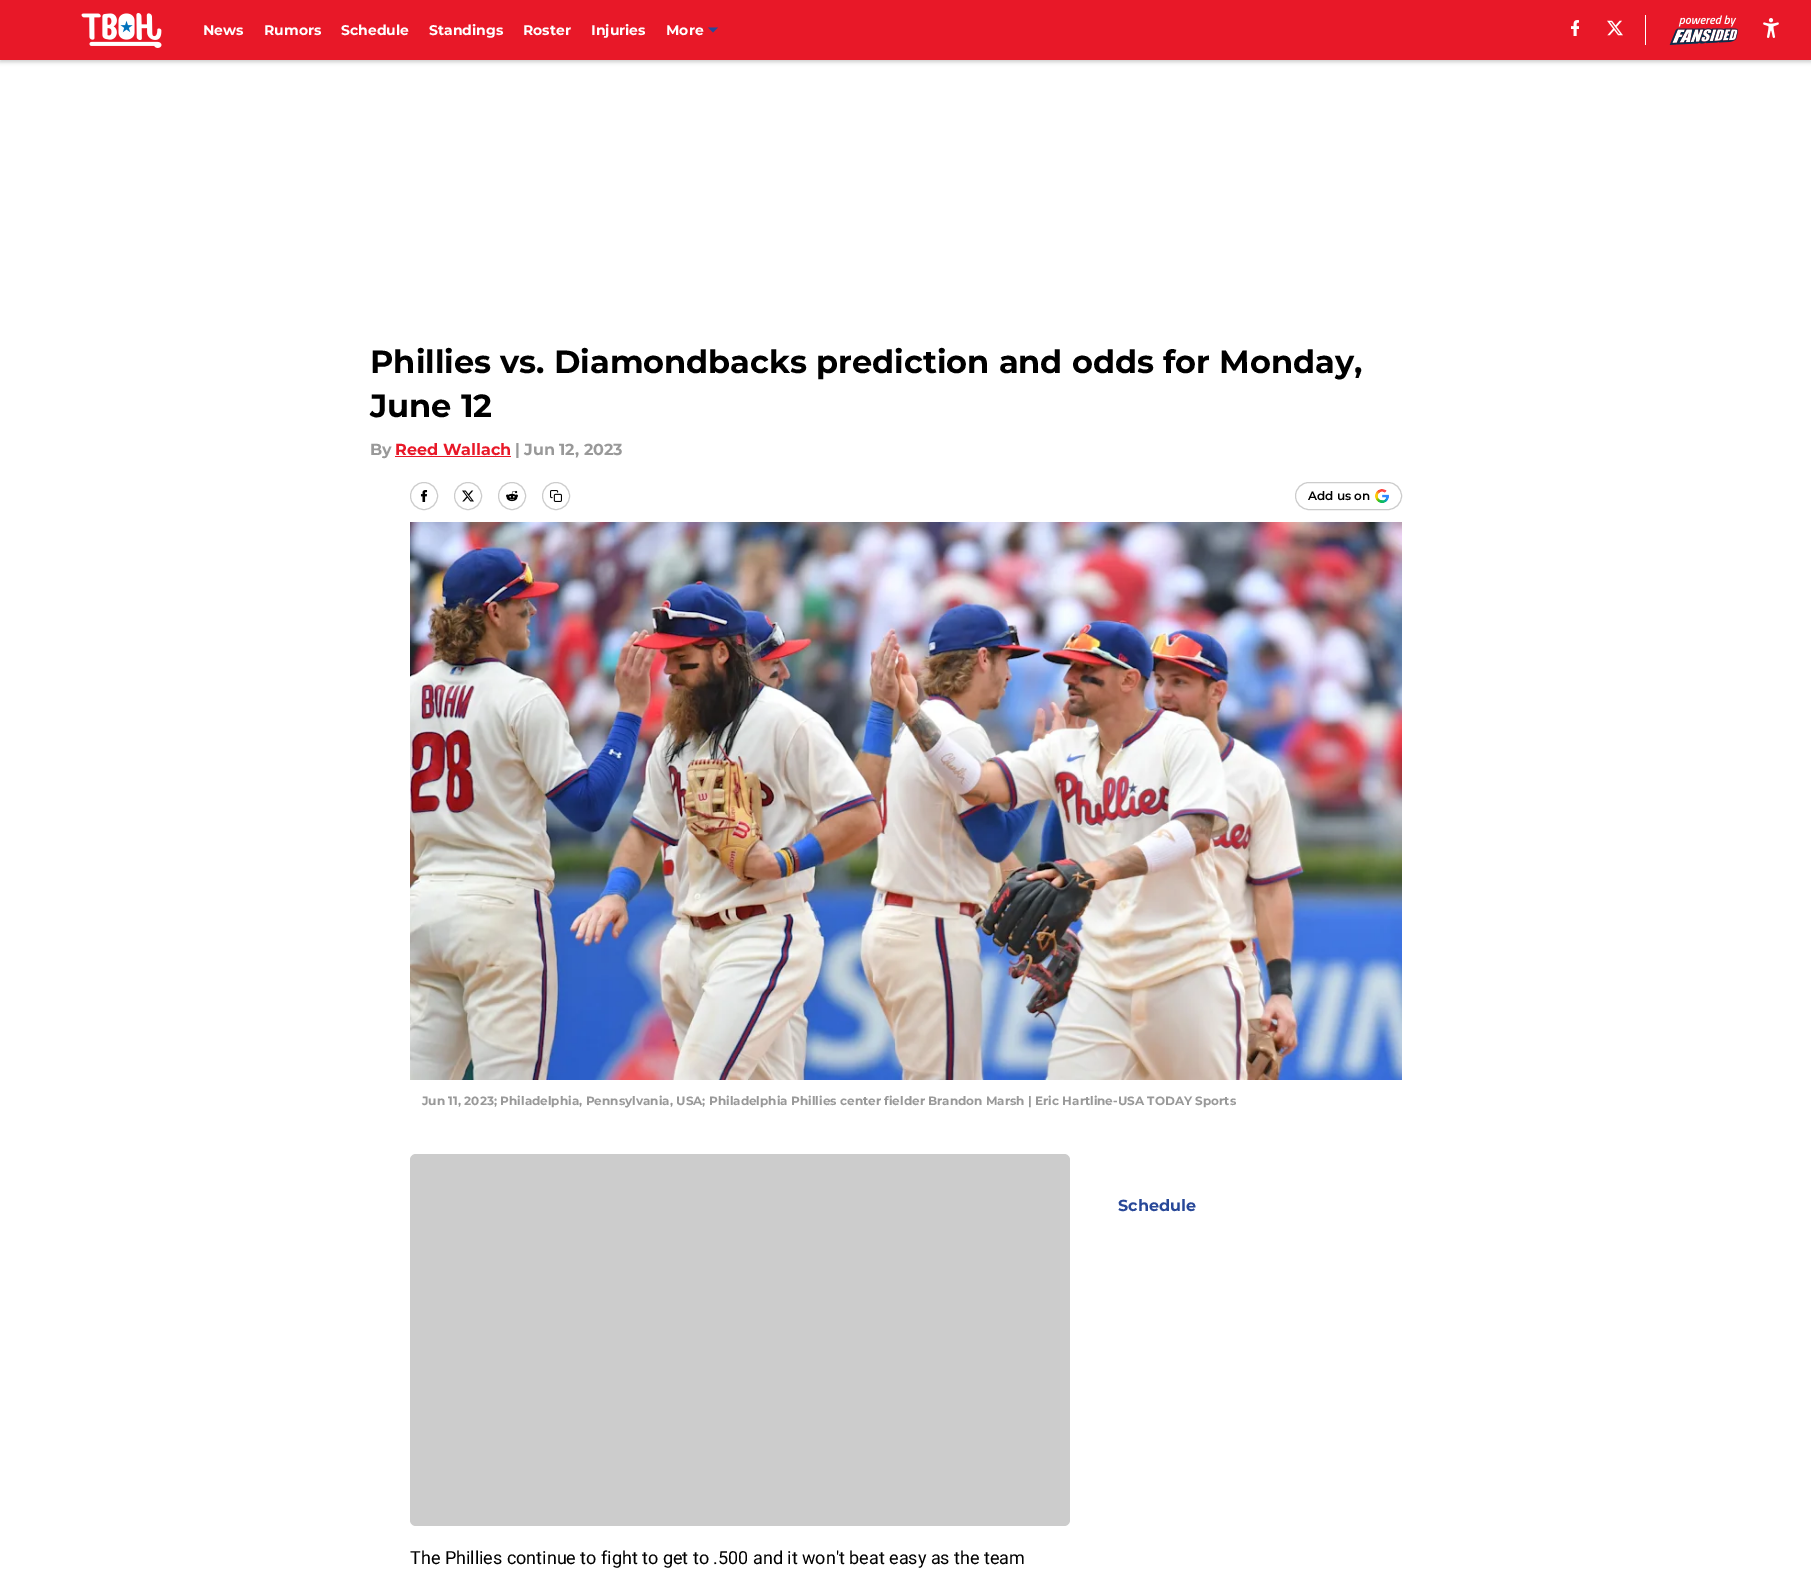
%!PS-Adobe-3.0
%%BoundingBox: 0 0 1811 1573
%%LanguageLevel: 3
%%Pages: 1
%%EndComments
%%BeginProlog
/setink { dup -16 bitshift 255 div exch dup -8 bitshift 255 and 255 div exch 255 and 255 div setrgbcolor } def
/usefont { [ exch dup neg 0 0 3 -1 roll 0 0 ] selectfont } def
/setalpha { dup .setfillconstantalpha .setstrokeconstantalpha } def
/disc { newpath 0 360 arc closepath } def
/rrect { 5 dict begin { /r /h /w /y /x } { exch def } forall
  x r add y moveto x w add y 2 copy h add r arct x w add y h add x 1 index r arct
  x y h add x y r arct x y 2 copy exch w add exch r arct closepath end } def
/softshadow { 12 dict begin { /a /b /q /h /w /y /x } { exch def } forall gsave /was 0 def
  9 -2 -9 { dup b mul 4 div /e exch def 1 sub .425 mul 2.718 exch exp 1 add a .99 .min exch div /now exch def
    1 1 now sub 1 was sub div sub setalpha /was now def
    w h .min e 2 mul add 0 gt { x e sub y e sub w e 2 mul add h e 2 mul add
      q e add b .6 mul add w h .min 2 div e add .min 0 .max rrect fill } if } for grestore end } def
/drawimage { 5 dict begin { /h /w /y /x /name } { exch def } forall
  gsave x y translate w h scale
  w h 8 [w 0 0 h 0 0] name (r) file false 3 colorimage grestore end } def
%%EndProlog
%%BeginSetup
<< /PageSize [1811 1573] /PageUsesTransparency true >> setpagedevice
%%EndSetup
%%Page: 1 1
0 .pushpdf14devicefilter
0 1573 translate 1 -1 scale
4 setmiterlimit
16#FFFFFF setink
0 0 1811 1573 rectfill
16#000000 setink
0 2 1811 60 0 2 0.2 softshadow
16#E81828 setink
0 0 1811 60 rectfill
(img1.raw) 81 13 81 35 drawimage
/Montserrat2-Thin 14 usefont
16#FFFFFF setink
[
    [(News) 203 35]
    [(Rumors) 264 35]
    [(Schedule) 341 35]
    [(Standings) 429 35]
    [(Roster) 523 35]
    [(Injuries) 591 35]
    [(More) 666 35]
] { aload pop moveto show } forall
16#284898 setink
708 27.5 moveto 713 32.5 lineto 718 27.5 lineto closepath eofill
(img2.raw) 1571 20 8 16 drawimage
(img3.raw) 1607 20 16 16 drawimage
16#FFFFFF setink
1645 15 1 30 rectfill
(img4.raw) 1669 15 70 30 drawimage
(img5.raw) 1763 18 16 20 drawimage
/Montserrat2-Thin 32 usefont
16#000000 setink
370 373 moveto (Phillies vs. Diamondbacks prediction and odds for Monday,) show
370 417 moveto (June 12) show
/Montserrat2-Thin 16 usefont
16#999999 setink
370 455 moveto (By) show
16#E81828 setink
395 455 moveto (Reed Wallach) show
395 456 116 1 rectfill
16#999999 setink
515 455 moveto (|) show
524 455 moveto (Jun 12, 2023) show
16#CCCCCC setink
424 496 13.5 disc stroke
(img6.raw) 420 490 8 12 drawimage
468 496 13.5 disc stroke
(img7.raw) 462 490 12 12 drawimage
512 496 13.5 disc stroke
(img8.raw) 506 490 12 12 drawimage
556 496 13.5 disc stroke
(img9.raw) 550 490 12 12 drawimage
1295.5 482.5 106 27 13.5 rrect stroke
/Montserrat-Thin 12 usefont
16#000000 setink
1308 500 moveto (Add us on) show
(img10.raw) 1375 489 14 14 drawimage
(img11.raw) 410 522 992 558 drawimage
/Montserrat2-Thin 12 usefont
16#999999 setink
422 1105 moveto (Jun 11, 2023; Philadelphia, Pennsylvania, USA; Philadelphia Phillies center fielder Brandon Marsh | Eric Hartline-USA TODAY Sports) show
/Montserrat2-Thin 16 usefont
16#284898 setink
1118 1211 moveto (Schedule) show
16#CCCCCC setink
410 1154 660 372 6 rrect fill
/Roboto-Regular 18 usefont
16#000000 setink
410 1564 moveto (The Phillies continue to fight to get to .500 and it won't beat easy as the team) show
.poppdf14devicefilter showpage
%%EOF
